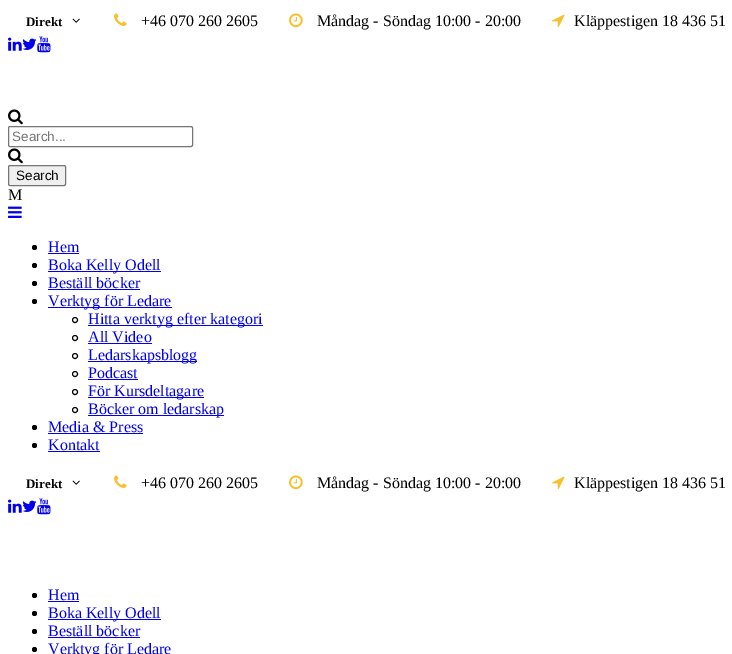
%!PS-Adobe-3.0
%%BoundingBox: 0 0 732 654
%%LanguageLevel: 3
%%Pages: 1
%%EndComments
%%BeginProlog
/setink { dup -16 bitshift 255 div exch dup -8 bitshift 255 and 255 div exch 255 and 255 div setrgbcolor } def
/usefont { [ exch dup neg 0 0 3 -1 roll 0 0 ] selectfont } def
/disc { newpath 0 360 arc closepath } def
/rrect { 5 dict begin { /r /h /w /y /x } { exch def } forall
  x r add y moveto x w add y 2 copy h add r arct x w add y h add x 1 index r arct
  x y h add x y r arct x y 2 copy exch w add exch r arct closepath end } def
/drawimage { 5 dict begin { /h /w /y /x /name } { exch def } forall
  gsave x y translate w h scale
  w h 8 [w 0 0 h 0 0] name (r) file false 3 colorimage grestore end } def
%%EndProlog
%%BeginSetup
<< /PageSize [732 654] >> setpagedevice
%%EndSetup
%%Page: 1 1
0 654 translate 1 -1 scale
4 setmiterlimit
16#FFFFFF setink
0 0 732 654 rectfill
/LiberationSerif-Bold 13 usefont
16#000000 setink
26 26 moveto (Direkt) show
(img1.raw) 72 18 8 5 drawimage
(img2.raw) 114 13 13 13 drawimage
/LiberationSerif-Regular 16 usefont
141 26 moveto (+46 070 260 2605) show
(img3.raw) 289 13 14 15 drawimage
317 26 moveto (Måndag - Söndag 10:00 - 20:00) show
(img4.raw) 552 14 13 14 drawimage
574 26 moveto (Kläppestigen 18 436 51) show
(img5.raw) 8 37 14 14 drawimage
(img6.raw) 22 38 15 12 drawimage
(img7.raw) 37 36 14 17 drawimage
(img8.raw) 8 109 15 16 drawimage
16#767676 setink
8.5 126.5 184 20 1.5 rrect stroke
/LiberationSans-Regular 13.5 usefont
16#757575 setink
12 141 moveto (Search...) show
(img8.raw) 8 148 15 16 drawimage
16#EFEFEF setink
8.5 165.5 57 20 1.5 rrect gsave fill grestore
16#767676 setink
stroke
16#000000 setink
16 180 moveto (Search) show
/LiberationSerif-Regular 16 usefont
8 200 moveto (M) show
(img9.raw) 8 206 14 12 drawimage
34.5 247.5 2.5 disc fill
16#0000EE setink
48 252 moveto (Hem) show
48 253 31 1 rectfill
16#000000 setink
34.5 265.5 2.5 disc fill
16#0000EE setink
48 271 113 1 rectfill
48 270 moveto (Boka Kelly Odell) show
16#000000 setink
34.5 283.5 2.5 disc fill
16#0000EE setink
48 288 moveto (Beställ böcker) show
48 289 92 1 rectfill
16#000000 setink
34.5 301.5 2.5 disc fill
16#0000EE setink
48 307 124 1 rectfill
48 306 moveto (Verktyg för Ledare) show
16#000000 setink
75 320 2.5 disc stroke
16#0000EE setink
88 325 175 1 rectfill
88 324 moveto (Hitta verktyg efter kategori) show
16#000000 setink
75 338 2.5 disc stroke
16#0000EE setink
88 342 moveto (All Video) show
88 343 64 1 rectfill
16#000000 setink
75 356 2.5 disc stroke
16#0000EE setink
88 361 109 1 rectfill
88 360 moveto (Ledarskapsblogg) show
16#000000 setink
75 374 2.5 disc stroke
16#0000EE setink
88 378 moveto (Podcast) show
88 379 50 1 rectfill
16#000000 setink
75 392 2.5 disc stroke
16#0000EE setink
88 397 116 1 rectfill
88 396 moveto (För Kursdeltagare) show
16#000000 setink
75 410 2.5 disc stroke
16#0000EE setink
88 415 136 1 rectfill
88 414 moveto (Böcker om ledarskap) show
16#000000 setink
34.5 427.5 2.5 disc fill
16#0000EE setink
48 432 moveto (Media & Press) show
48 433 95 1 rectfill
16#000000 setink
34.5 445.5 2.5 disc fill
16#0000EE setink
48 450 moveto (Kontakt) show
48 451 52 1 rectfill
/LiberationSerif-Bold 13 usefont
16#000000 setink
26 488 moveto (Direkt) show
(img1.raw) 72 480 8 5 drawimage
(img2.raw) 114 475 13 13 drawimage
/LiberationSerif-Regular 16 usefont
141 488 moveto (+46 070 260 2605) show
(img3.raw) 289 475 14 15 drawimage
317 488 moveto (Måndag - Söndag 10:00 - 20:00) show
(img4.raw) 552 476 13 14 drawimage
574 488 moveto (Kläppestigen 18 436 51) show
(img5.raw) 8 499 14 14 drawimage
(img6.raw) 22 500 15 12 drawimage
(img7.raw) 37 498 14 17 drawimage
34.5 595.5 2.5 disc fill
16#0000EE setink
48 600 moveto (Hem) show
48 601 31 1 rectfill
16#000000 setink
34.5 613.5 2.5 disc fill
16#0000EE setink
48 619 113 1 rectfill
48 618 moveto (Boka Kelly Odell) show
16#000000 setink
34.5 631.5 2.5 disc fill
16#0000EE setink
48 636 moveto (Beställ böcker) show
48 637 92 1 rectfill
16#000000 setink
34.5 649.5 2.5 disc fill
16#0000EE setink
48 654 moveto (Verktyg för Ledare) show
showpage
%%EOF
